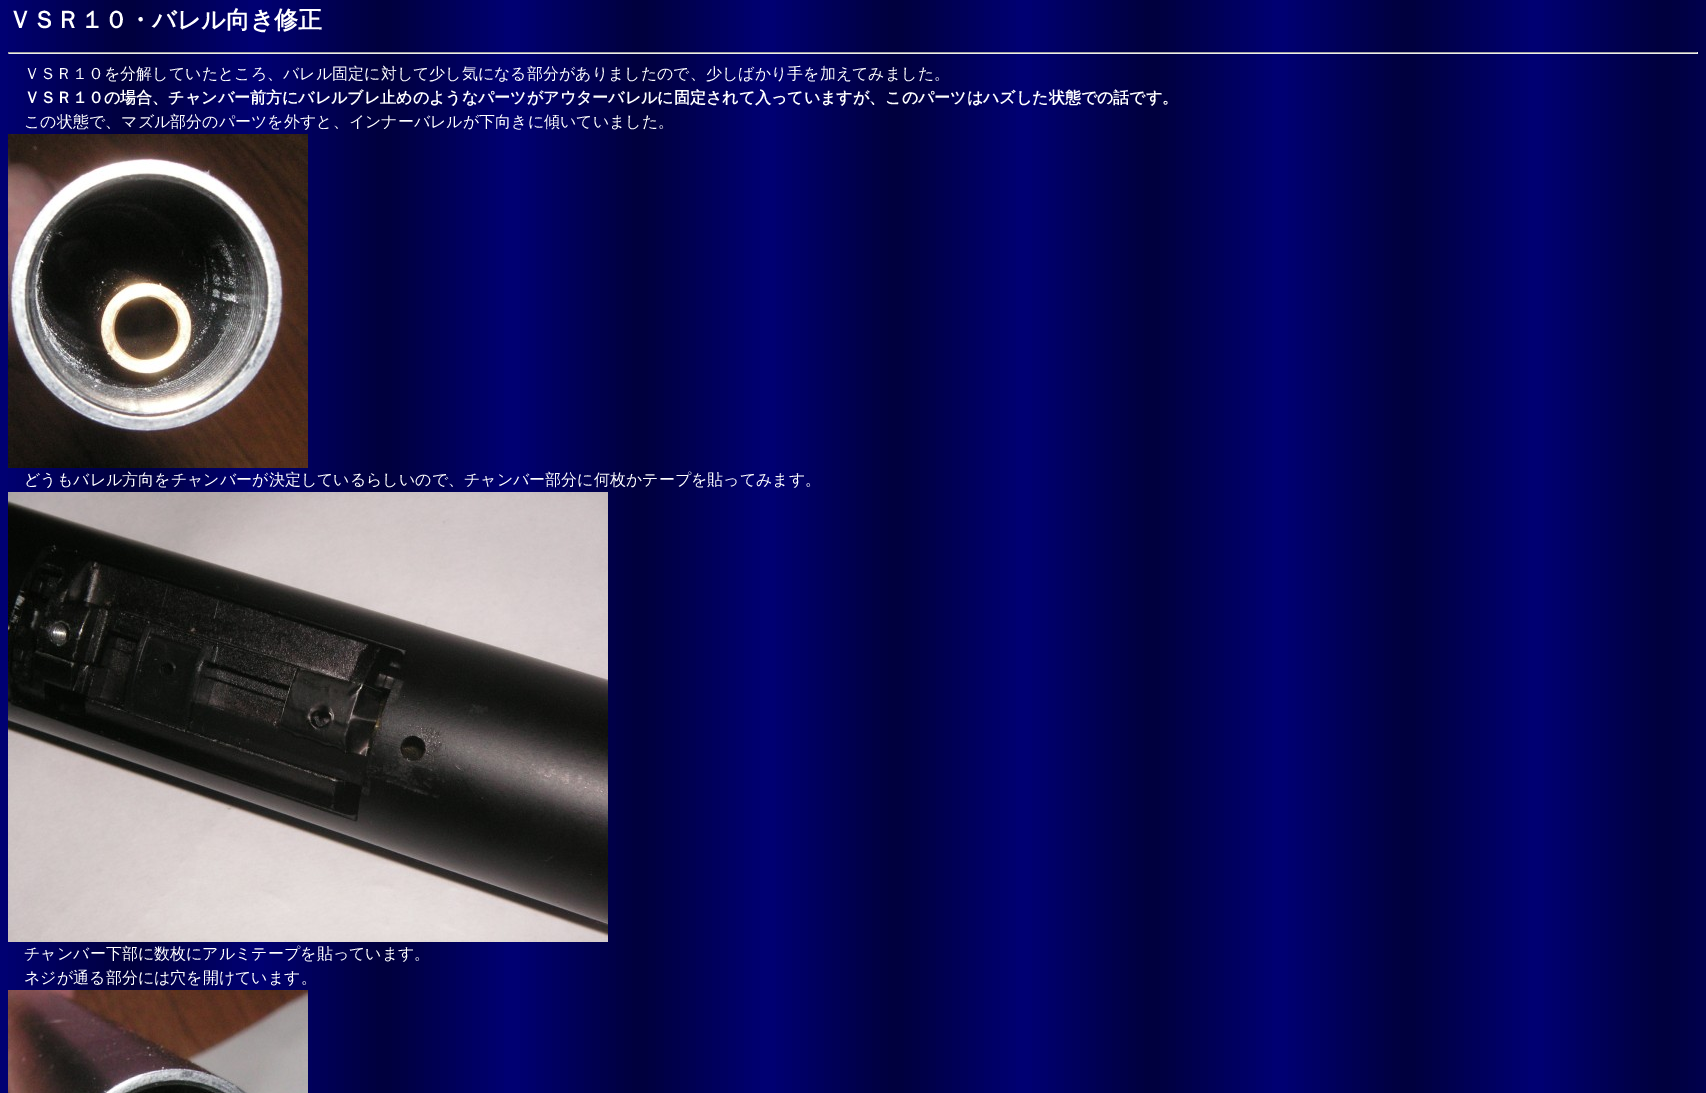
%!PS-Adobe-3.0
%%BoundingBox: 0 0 1706 1093
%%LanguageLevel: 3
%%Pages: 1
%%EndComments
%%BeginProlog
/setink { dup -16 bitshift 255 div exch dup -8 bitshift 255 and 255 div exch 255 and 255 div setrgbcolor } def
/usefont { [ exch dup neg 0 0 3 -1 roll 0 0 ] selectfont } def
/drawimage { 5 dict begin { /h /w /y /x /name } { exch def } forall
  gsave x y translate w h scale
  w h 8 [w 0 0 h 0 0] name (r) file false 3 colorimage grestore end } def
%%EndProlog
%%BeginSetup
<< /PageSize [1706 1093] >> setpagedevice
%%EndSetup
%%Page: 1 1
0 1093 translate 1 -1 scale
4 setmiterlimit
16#FFFFFF setink
0 0 1706 1093 rectfill
(img1.raw) 0 0 1706 1093 drawimage
/WenQuanYiZenHei-Bold 24 usefont
8 28 moveto (ＶＳＲ１０・バレル向き修正) show
[
    [8 52 1690 1 16#9F9F9F]
    [1697 52 1 2 16#EEEEEE]
    [8 53 1690 1 16#EEEEEE]
    [8 52 1 2 16#9F9F9F]
] { aload pop setink rectfill } forall
/WenQuanYiZenHei-Medium 16 usefont
16#FFFFFF setink
24 79 moveto (ＶＳＲ１０を分解していたところ、バレル固定に対して少し気になる部分がありましたので、少しばかり手を加えてみました。) show
/WenQuanYiZenHei-Bold 16 usefont
24 103 moveto (ＶＳＲ１０の場合、チャンバー前方にバレルブレ止めのようなパーツがアウターバレルに固定されて入っていますが、このパーツはハズした状態での話です。) show
/WenQuanYiZenHei-Medium 16 usefont
24 127 moveto (この状態で、マズル部分のパーツを外すと、インナーバレルが下向きに傾いていました。) show
(img2.raw) 8 134 300 334 drawimage
24 485 moveto (どうもバレル方向をチャンバーが決定しているらしいので、チャンバー部分に何枚かテープを貼ってみます。) show
(img3.raw) 8 492 600 450 drawimage
24 959 moveto (チャンバー下部に数枚にアルミテープを貼っています。) show
24 983 moveto (ネジが通る部分には穴を開けています。) show
(img4.raw) 8 990 300 103 drawimage
showpage
%%EOF
